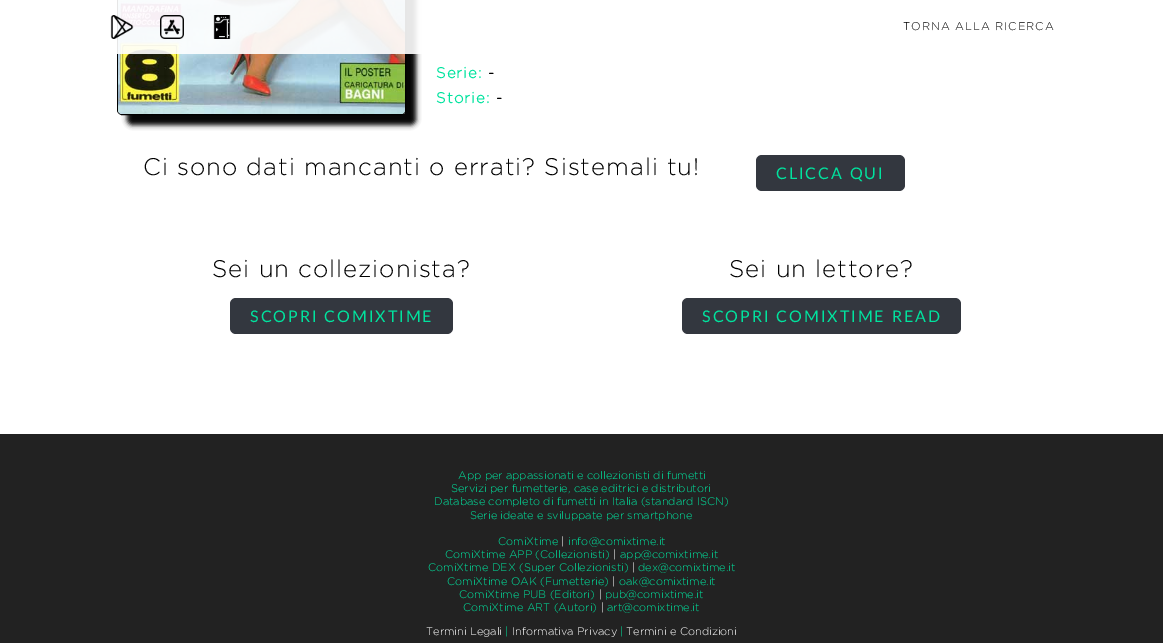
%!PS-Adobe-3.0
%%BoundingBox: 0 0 1163 643
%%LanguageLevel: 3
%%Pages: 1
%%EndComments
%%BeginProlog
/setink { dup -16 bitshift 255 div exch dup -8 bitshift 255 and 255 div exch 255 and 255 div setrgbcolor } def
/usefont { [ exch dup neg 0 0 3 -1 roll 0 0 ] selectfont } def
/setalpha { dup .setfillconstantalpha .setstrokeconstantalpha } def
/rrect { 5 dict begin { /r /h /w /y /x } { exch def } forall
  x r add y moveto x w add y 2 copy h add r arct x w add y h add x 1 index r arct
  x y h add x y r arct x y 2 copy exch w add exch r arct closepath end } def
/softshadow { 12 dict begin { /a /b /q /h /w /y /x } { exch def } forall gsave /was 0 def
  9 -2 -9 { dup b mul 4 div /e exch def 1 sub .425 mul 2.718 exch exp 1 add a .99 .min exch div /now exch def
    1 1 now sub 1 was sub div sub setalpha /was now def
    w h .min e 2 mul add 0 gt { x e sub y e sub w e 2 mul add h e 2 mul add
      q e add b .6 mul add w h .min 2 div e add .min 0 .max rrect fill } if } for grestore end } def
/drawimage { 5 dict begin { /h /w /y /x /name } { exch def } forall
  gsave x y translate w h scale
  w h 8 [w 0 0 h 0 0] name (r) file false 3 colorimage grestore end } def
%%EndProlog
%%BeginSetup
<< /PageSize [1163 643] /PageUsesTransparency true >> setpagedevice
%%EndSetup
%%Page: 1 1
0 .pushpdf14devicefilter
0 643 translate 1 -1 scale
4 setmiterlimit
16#FFFFFF setink
0 0 1163 643 rectfill
16#000000 setink
127 -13 289 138 5 2.5 1 softshadow
117.5 -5.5 288 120 4.5 rrect stroke
(img4.raw) 118 0 287 114 drawimage
0.9 setalpha
16#FFFFFF setink
117 0 305 54 rectfill
1 setalpha
(img1.raw) 110 15 24 24 drawimage
(img2.raw) 160 15 24 24 drawimage
(img3.raw) 213 15 18 24 drawimage
/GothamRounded-Light 11.25 usefont
16#000000 setink
903 30 moveto 1 0 (TORNA ALLA RICERCA) ashow
/GothamRounded-Bold 15 usefont
16#00E39E setink
436 78 moveto 1 0 (Serie:) ashow
16#000000 setink
488 78 moveto 1 0 (-) ashow
16#00E39E setink
436 103 moveto 1 0 (Storie:) ashow
16#000000 setink
496 103 moveto 1 0 (-) ashow
/GothamRounded-Light 24 usefont
143 175 moveto 1 0 (Ci sono dati mancanti o errati? Sistemali tu!) ashow
16#33373F setink
756 155 149 36 6 rrect fill
/Lato-Regular 16 usefont
16#00E39E setink
776 179 moveto 2 0 (CLICCA QUI) ashow
/GothamRounded-Light 24 usefont
16#000000 setink
212 277 moveto 1 0 (Sei un collezionista?) ashow
16#33373F setink
230 298 223 36 6 rrect fill
/Lato-Regular 16 usefont
16#00E39E setink
250 322 moveto 2 0 (SCOPRI COMIXTIME) ashow
/GothamRounded-Light 24 usefont
16#000000 setink
729 277 moveto 1 0 (Sei un lettore?) ashow
16#33373F setink
682 298 279 36 6 rrect fill
/Lato-Regular 16 usefont
16#00E39E setink
702 322 moveto 2 0 (SCOPRI COMIXTIME READ) ashow
16#222222 setink
0 434 1163 209 rectfill
/GothamRounded-Light 11 usefont
16#00E39E setink
[
    [(App per appassionati e collezionisti di fumetti) 458 479]
    [(Servizi per fumetterie, case editrici e distributori) 451 492]
    [(Database completo di fumetti in Italia \(standard ISCN\)) 434 505]
    [(Serie ideate e sviluppate per smartphone) 470 519]
    [(ComiXtime) 498 545]
] { aload pop moveto show } forall
16#FFFFFF setink
561 545 moveto (|) show
16#00E39E setink
568 545 moveto (info@comixtime.it) show
445 558 moveto (ComiXtime APP \(Collezionisti\)) show
16#FFFFFF setink
613 558 moveto (|) show
16#00E39E setink
620 558 moveto (app@comixtime.it) show
428 571 moveto (ComiXtime DEX \(Super Collezionisti\)) show
16#FFFFFF setink
632 571 moveto (|) show
16#00E39E setink
638 571 moveto (dex@comixtime.it) show
447 585 moveto (ComiXtime OAK \(Fumetterie\)) show
16#FFFFFF setink
612 585 moveto (|) show
16#00E39E setink
619 585 moveto (oak@comixtime.it) show
459 598 moveto (ComiXtime PUB \(Editori\)) show
16#FFFFFF setink
599 598 moveto (|) show
16#00E39E setink
605 598 moveto (pub@comixtime.it) show
463 611 moveto (ComiXtime ART \(Autori\)) show
16#FFFFFF setink
601 611 moveto (|) show
16#00E39E setink
607 611 moveto (art@comixtime.it) show
16#FFFFFF setink
426 635 moveto (Termini Legali) show
16#00E39E setink
505 635 moveto (|) show
16#FFFFFF setink
512 635 moveto (Informativa Privacy) show
16#00E39E setink
620 635 moveto (|) show
16#FFFFFF setink
626 635 moveto (Termini e Condizioni) show
.poppdf14devicefilter showpage
%%EOF
